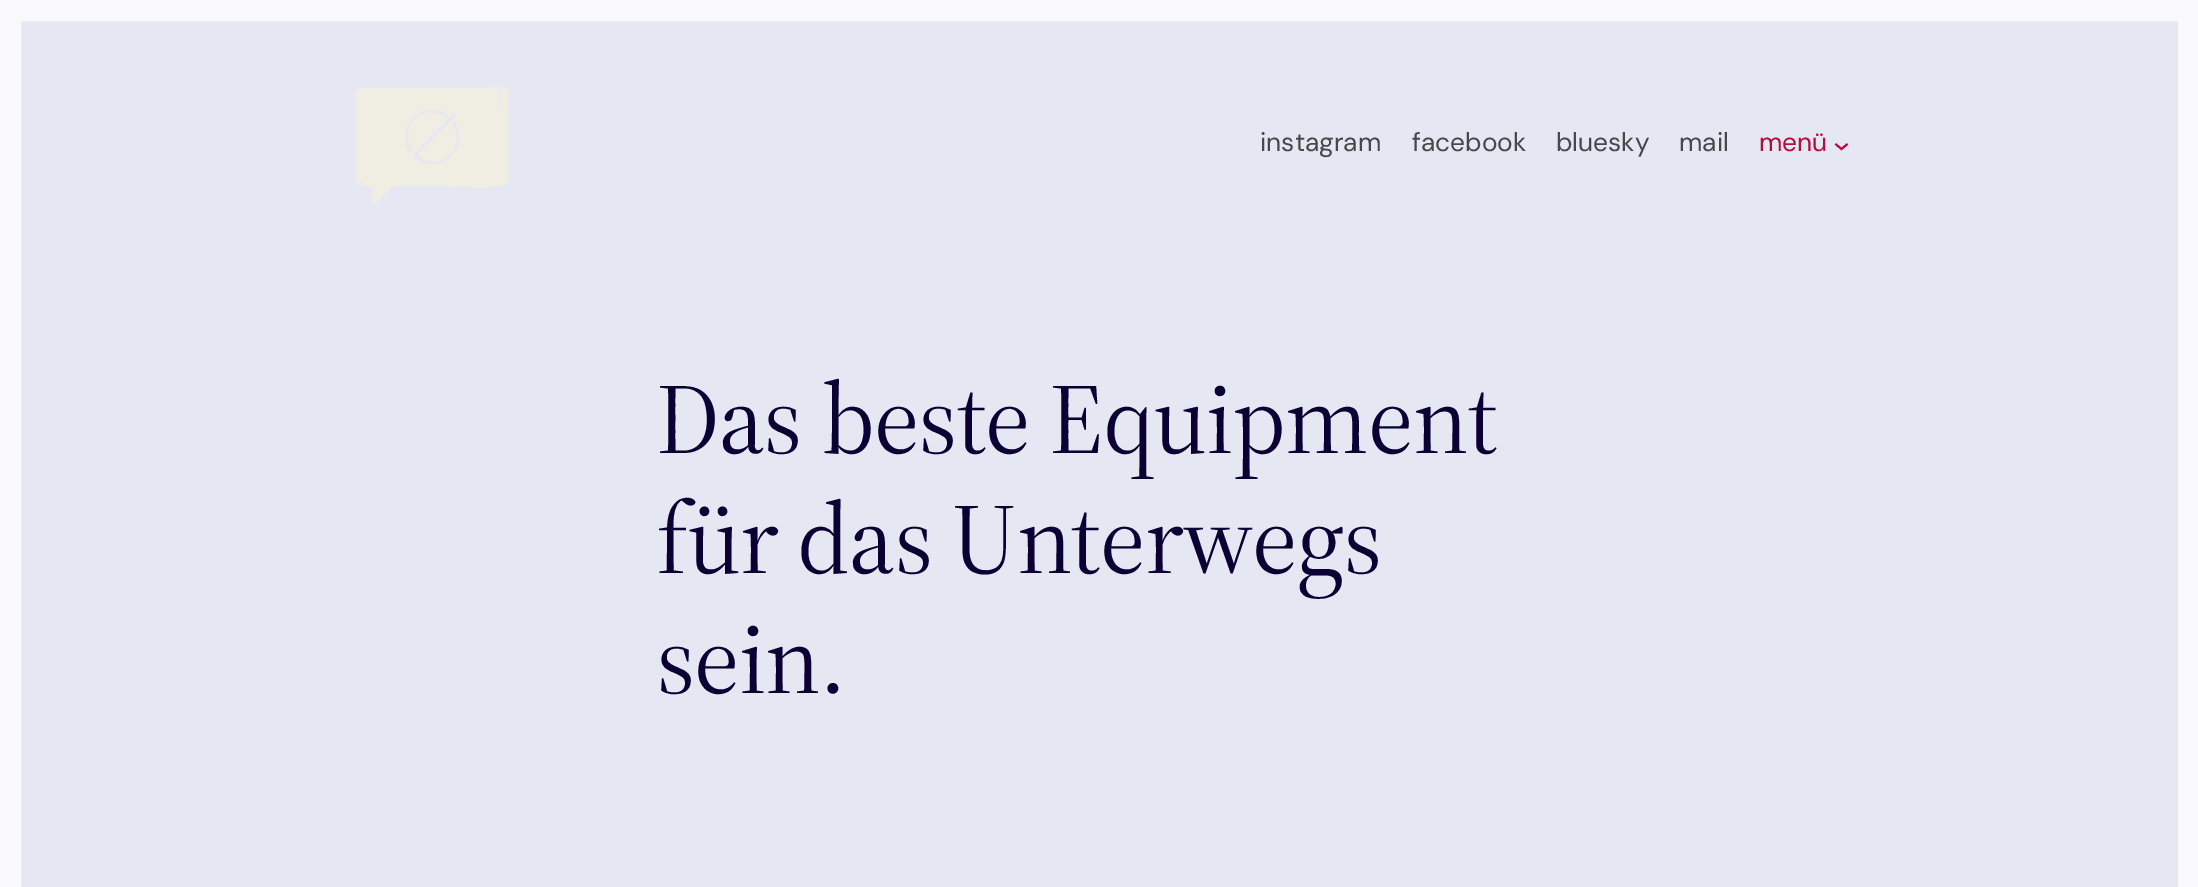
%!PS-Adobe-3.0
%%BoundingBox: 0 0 2198 887
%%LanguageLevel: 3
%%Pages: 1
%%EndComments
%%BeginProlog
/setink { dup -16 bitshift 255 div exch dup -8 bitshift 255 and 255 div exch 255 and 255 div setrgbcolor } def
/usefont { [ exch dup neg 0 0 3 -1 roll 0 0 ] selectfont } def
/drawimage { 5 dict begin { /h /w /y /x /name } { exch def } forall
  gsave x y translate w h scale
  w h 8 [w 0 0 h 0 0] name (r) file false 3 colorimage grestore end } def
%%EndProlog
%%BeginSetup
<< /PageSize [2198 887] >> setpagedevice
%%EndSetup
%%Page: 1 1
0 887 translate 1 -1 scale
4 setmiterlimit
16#E5E7F2 setink
0 0 2198 887 rectfill
16#F9F9FB setink
21 setlinewidth
10.5 10.5 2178 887 rectstroke
(img1.raw) 355 87 154 118 drawimage
/DMSans-Regular 26.25 usefont
16#47484B setink
[
    [(instagram) 1260 151]
    [(facebook) 1412 151]
    [(bluesky) 1556 151]
    [(mail) 1679 151]
] { aload pop moveto show } forall
16#B50B3E setink
1759 151 moveto (menü) show
2 setlinewidth
1835.5 144 moveto 1841.5 149 lineto 1847.5 144 lineto stroke
/SourceSerif4-Regular 100 usefont
16#0B0033 setink
656 453 moveto -1 0 (Das beste Equipment) ashow
656 573 moveto -1 0 (für das Unterwegs) ashow
656 693 moveto -1 0 (sein.) ashow
showpage
%%EOF
